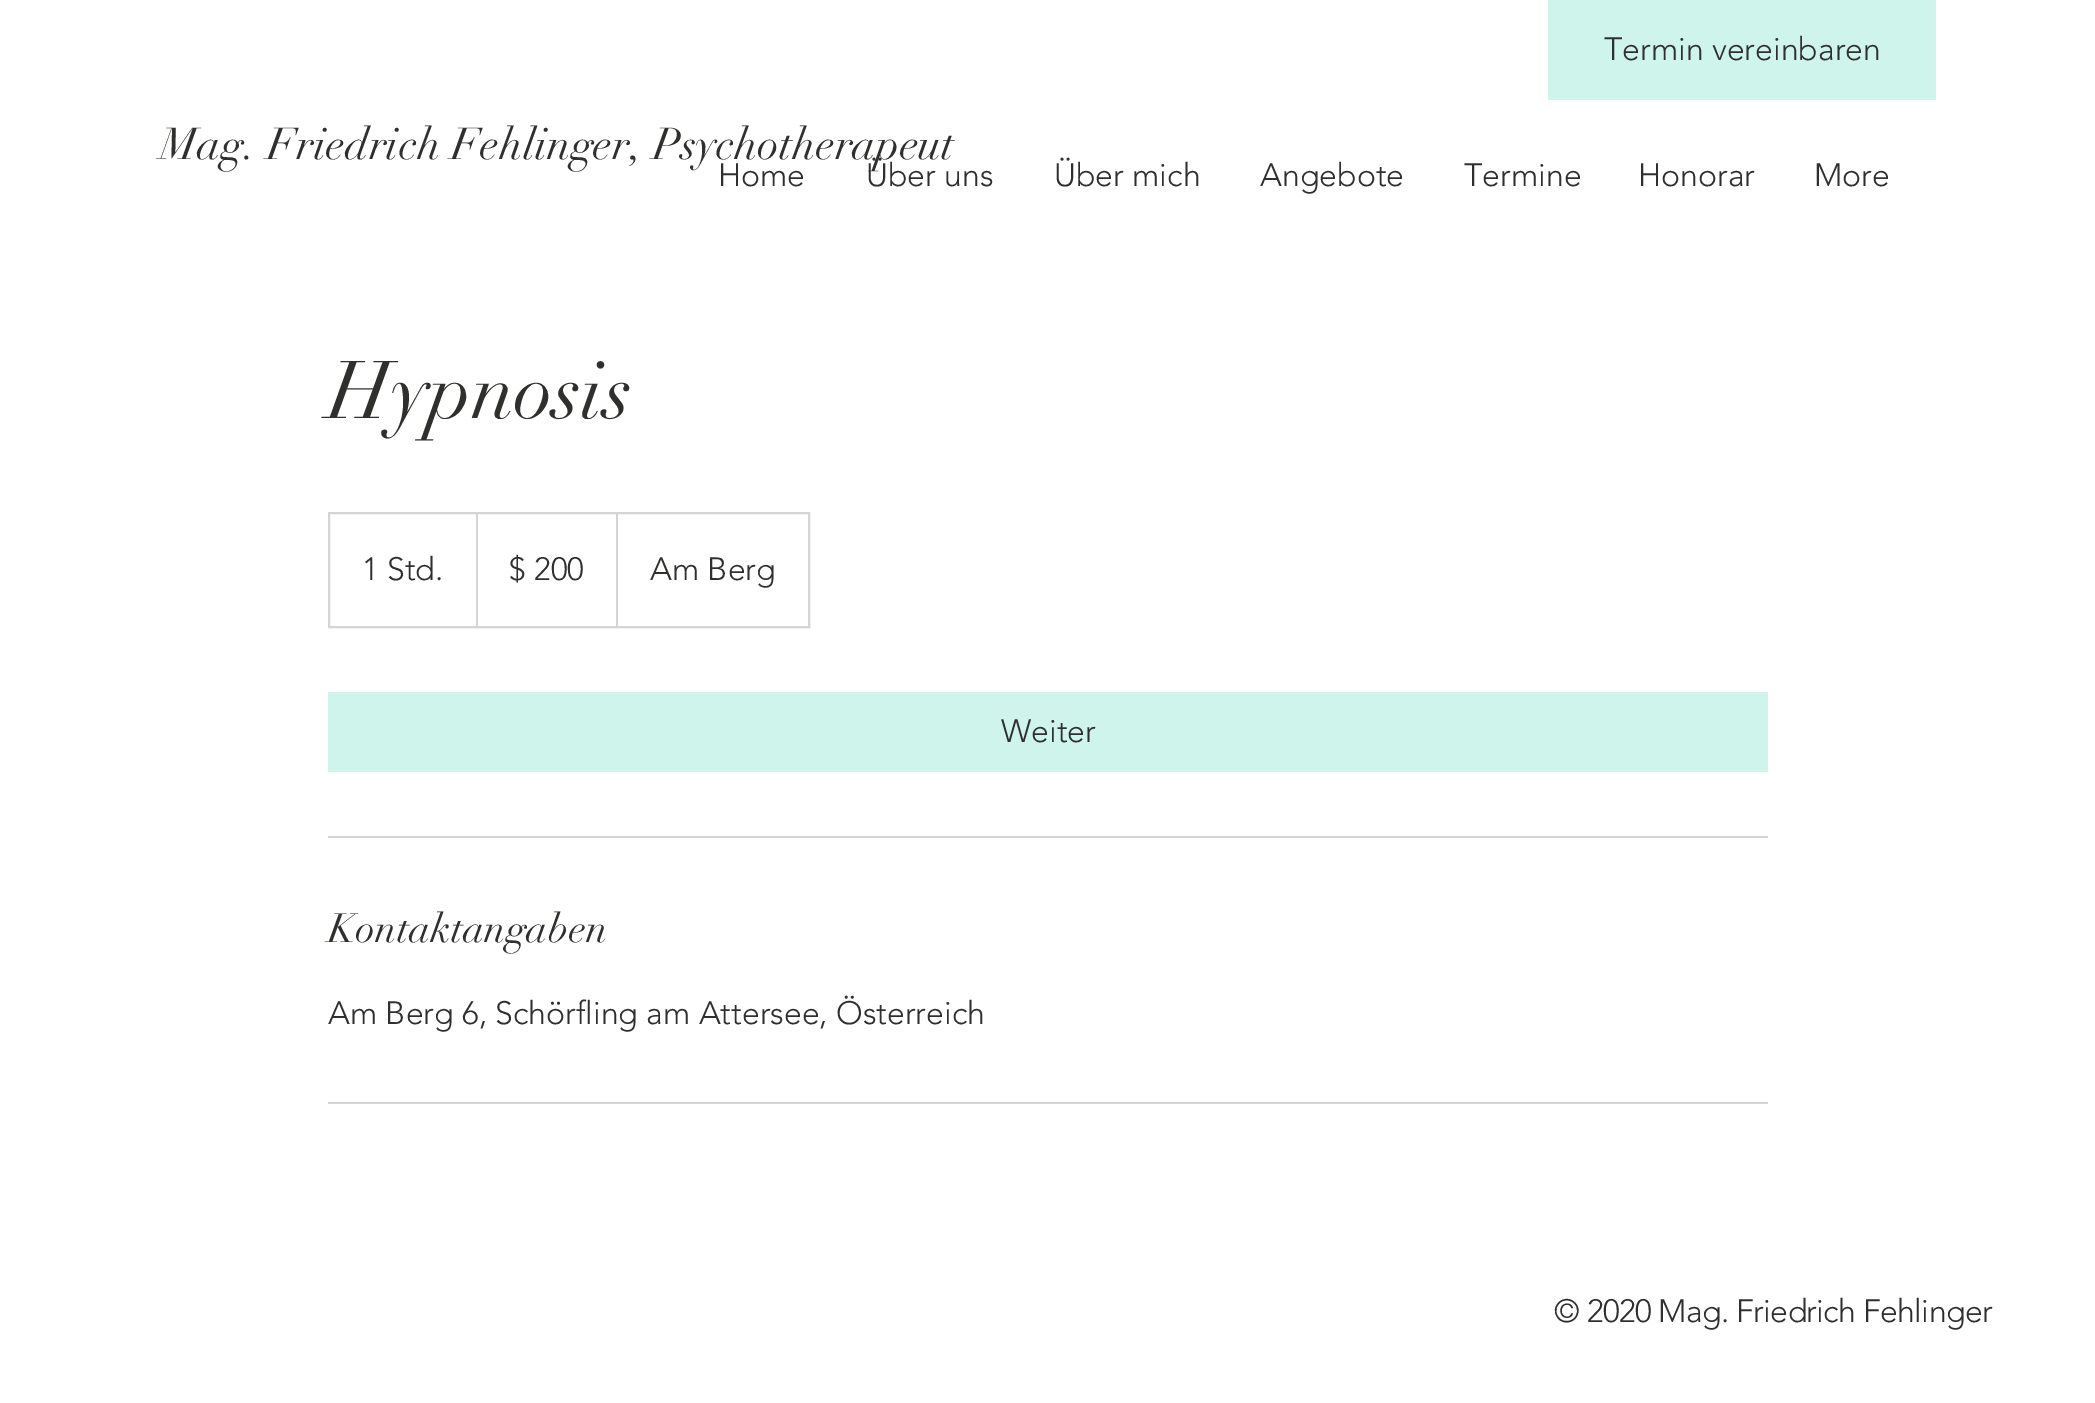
%!PS-Adobe-3.0
%%BoundingBox: 0 0 2095 1403
%%LanguageLevel: 3
%%Pages: 1
%%EndComments
%%BeginProlog
/setink { dup -16 bitshift 255 div exch dup -8 bitshift 255 and 255 div exch 255 and 255 div setrgbcolor } def
/usefont { [ exch dup neg 0 0 3 -1 roll 0 0 ] selectfont } def
%%EndProlog
%%BeginSetup
<< /PageSize [2095 1403] >> setpagedevice
%%EndSetup
%%Page: 1 1
0 1403 translate 1 -1 scale
4 setmiterlimit
16#FFFFFF setink
0 0 2095 1403 rectfill
/didot-Regular 44 usefont
16#2F2F2E setink
160 159 moveto (Mag. Friedrich Fehlinger, Psychotherapeut) show
16#CFF4EC setink
1548 0 388 100 rectfill
/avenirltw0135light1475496-Light 32 usefont
16#2F2F2E setink
[
    [(Termin vereinbaren) 1604 60]
    [(Home) 718 186]
    [(Über uns) 866 186]
    [(Über mich) 1054 186]
    [(Angebote) 1260 186]
    [(Termine) 1464 186]
    [(Honorar) 1638 186]
    [(More) 1814 186]
] { aload pop moveto show } forall
/didot-Regular 80 usefont
328 418 moveto (Hypnosis) show
16#D5D5D5 setink
2 setlinewidth
329 513 480 114 rectstroke
/avenirltw0135light1475496-Light 32 usefont
16#2F2F2E setink
362 580 moveto (1 Std.) show
gsave
330 514 478 112 rectclip
16#D5D5D5 setink
476 626 moveto 476 512 lineto 478 514 lineto 478 626 lineto closepath fill
grestore
509 580 moveto ($ 200) show
gsave
330 514 478 112 rectclip
16#D5D5D5 setink
616 626 moveto 616 512 lineto 618 514 lineto 618 626 lineto closepath fill
grestore
650 580 moveto (Am Berg) show
16#CFF4EC setink
328 692 1440 80 rectfill
16#2F2F2E setink
1001 742 moveto (Weiter) show
16#D5D5D5 setink
328 836 1440 2 rectfill
/didot-Regular 40 usefont
16#2F2F2E setink
328 942 moveto (Kontaktangaben) show
/avenirltw0135light1475496-Light 32 usefont
328 1024 moveto (Am Berg 6, Schörfling am Attersee, Österreich) show
16#D5D5D5 setink
328 1102 1440 2 rectfill
16#2F2F2E setink
1554 1322 moveto -0.65 0 (© 2020 Mag. Friedrich Fehlinger) ashow
showpage
%%EOF
